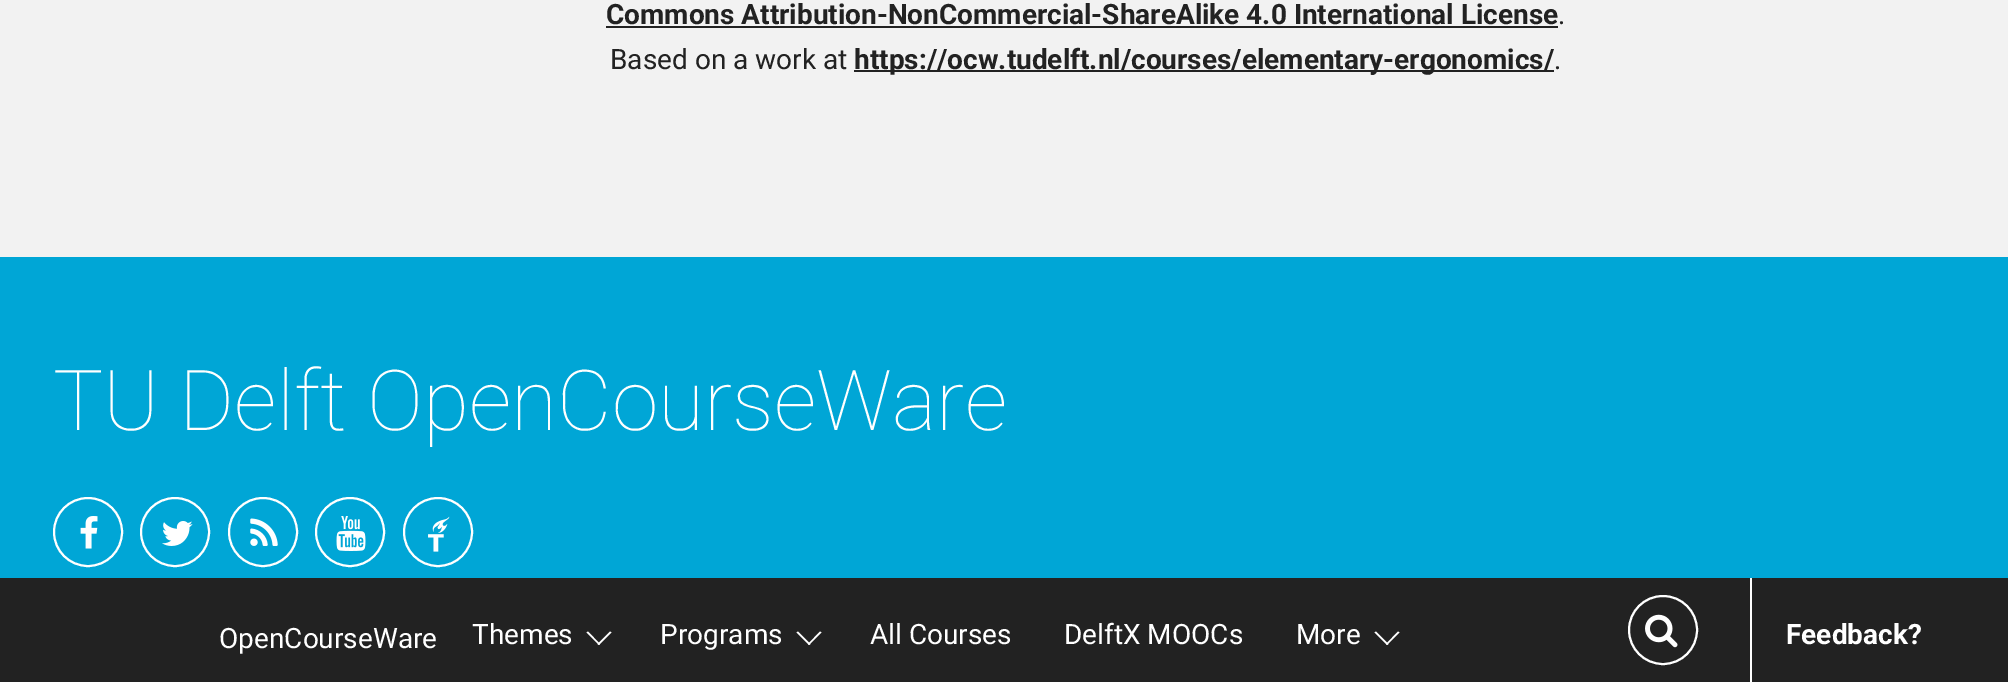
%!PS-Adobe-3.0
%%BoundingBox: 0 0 2008 682
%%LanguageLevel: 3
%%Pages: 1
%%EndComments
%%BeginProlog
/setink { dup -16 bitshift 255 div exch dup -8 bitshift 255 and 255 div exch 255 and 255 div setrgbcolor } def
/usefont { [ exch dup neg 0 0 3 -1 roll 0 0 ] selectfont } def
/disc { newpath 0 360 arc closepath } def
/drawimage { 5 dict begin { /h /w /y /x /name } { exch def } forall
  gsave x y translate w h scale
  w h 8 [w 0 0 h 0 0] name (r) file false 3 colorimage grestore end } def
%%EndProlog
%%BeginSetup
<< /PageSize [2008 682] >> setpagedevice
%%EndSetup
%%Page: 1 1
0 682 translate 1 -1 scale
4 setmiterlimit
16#F2F2F2 setink
0 0 2008 682 rectfill
/Roboto-Bold 28 usefont
16#222222 setink
606 24 moveto (Commons Attribution-NonCommercial-ShareAlike 4.0 International License) show
606 26 952 2 rectfill
/Roboto-Regular 28 usefont
1558 24 moveto (.) show
610 69 moveto (Based on a work at) show
854 70 700 2 rectfill
/Roboto-Bold 28 usefont
854 69 moveto (https://ocw.tudelft.nl/courses/elementary-ergonomics/) show
/Roboto-Regular 28 usefont
1554 69 moveto (.) show
16#00A6D6 setink
0 257 2008 321 rectfill
/Roboto-Thin 84 usefont
16#FFFFFF setink
53 430 moveto (TU Delft OpenCourseWare) show
2 setlinewidth
88 532 34 disc stroke
(img1.raw) 80 516 18 33 drawimage
175 532 34 disc stroke
(img2.raw) 162 521 31 25 drawimage
263 532 34 disc stroke
(img3.raw) 250 518 28 28 drawimage
350 532 34 disc stroke
(img4.raw) 336 516 30 35 drawimage
438 532 34 disc stroke
(img5.raw) 428 516 22 36 drawimage
16#222222 setink
0 578 2008 104 rectfill
/Roboto-Regular 28 usefont
16#FFFFFF setink
219 648 moveto (OpenCourseWare) show
472 644 moveto (Themes) show
599 645 moveto 586.5 632.5 lineto 588 631.5 lineto 600 644 lineto closepath fill
599 645 moveto 597.5 644 lineto 610 631.5 lineto 611.5 632.5 lineto closepath fill
660 644 moveto (Programs) show
809 645 moveto 796.5 632.5 lineto 798 631.5 lineto 810.5 644 lineto closepath fill
809 645 moveto 808 644 lineto 820 631.5 lineto 821.5 632.5 lineto closepath fill
[
    [(All Courses) 870 644]
    [(DelftX MOOCs) 1064 644]
    [(More) 1296 644]
] { aload pop moveto show } forall
1387 645 moveto 1374.5 632.5 lineto 1376 631.5 lineto 1388.5 644 lineto closepath fill
1387 645 moveto 1386 644 lineto 1398 631.5 lineto 1399.5 632.5 lineto closepath fill
1663 630 34 disc stroke
(img6.raw) 1645 614 33 34 drawimage
1750 578 2 104 rectfill
/Roboto-Bold 28 usefont
1786 644 moveto (Feedback?) show
showpage
%%EOF
